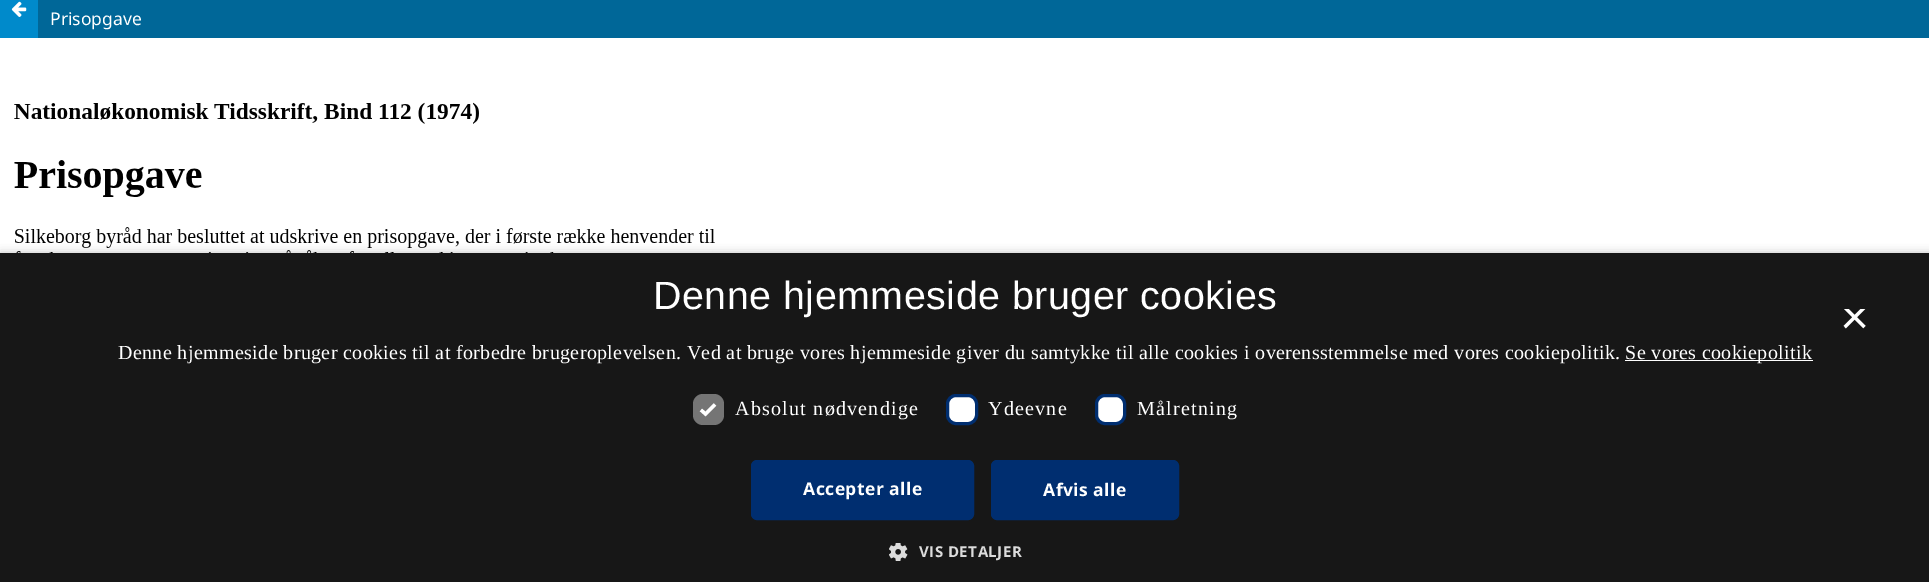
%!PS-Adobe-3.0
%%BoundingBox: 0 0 1929 582
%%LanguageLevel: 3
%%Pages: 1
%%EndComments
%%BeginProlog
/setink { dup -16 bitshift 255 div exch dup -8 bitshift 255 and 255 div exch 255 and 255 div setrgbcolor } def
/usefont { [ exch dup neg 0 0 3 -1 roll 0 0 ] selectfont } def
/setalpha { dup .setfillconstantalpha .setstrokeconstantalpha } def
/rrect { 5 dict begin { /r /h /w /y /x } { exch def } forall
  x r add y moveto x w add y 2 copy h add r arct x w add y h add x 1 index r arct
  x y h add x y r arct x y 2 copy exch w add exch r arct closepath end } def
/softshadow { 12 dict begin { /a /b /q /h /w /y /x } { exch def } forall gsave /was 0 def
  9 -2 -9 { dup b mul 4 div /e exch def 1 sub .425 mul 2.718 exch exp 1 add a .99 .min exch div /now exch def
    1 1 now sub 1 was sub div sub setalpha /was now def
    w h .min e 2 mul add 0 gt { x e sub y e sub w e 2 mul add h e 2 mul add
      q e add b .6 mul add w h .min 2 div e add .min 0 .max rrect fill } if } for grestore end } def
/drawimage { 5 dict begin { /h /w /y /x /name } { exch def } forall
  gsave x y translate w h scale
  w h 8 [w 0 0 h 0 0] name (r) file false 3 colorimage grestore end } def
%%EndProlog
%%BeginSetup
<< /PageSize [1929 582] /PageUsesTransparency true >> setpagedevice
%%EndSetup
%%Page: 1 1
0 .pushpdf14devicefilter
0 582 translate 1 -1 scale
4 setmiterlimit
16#FFFFFF setink
0 0 1929 582 rectfill
16#006798 setink
38 0 1891 38 rectfill
16#008ACB setink
0 0 38 38 rectfill
(img1.raw) 11 1 16 16 drawimage
/NotoSans-Regular 17.5 usefont
16#FFFFFF setink
50 25 moveto (Prisopgave) show
(img2.raw) 14 102 701 151 drawimage
16#000000 setink
1 255 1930 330 0 5 0.35 softshadow
16#171717 setink
0 253 1929 329 rectfill
/LiberationSans-Regular 39.4 usefont
16#FFFFFF setink
653 309 moveto 0.5 0 (Denne hjemmeside bruger cookies) ashow
gsave
1836 309 38 37 rectclip
/LiberationSans-Regular 50 usefont
1840 334 moveto (×) show
grestore
/LiberationSerif-Regular 20 usefont
118 359 moveto 0.38 0 (Denne hjemmeside bruger cookies til at forbedre brugeroplevelsen. Ved at bruge vores hjemmeside giver du samtykke til alle cookies i overensstemmelse med vores cookiepolitik.) ashow
1625 360 188 1 rectfill
1625 359 moveto 0.38 0 (Se vores cookiepolitik) ashow
16#757575 setink
693 394 31 31 10 rrect fill
16#FFFFFF setink
3.3 setlinewidth
701 410 moveto 705.5 414 lineto 715 404.5 lineto stroke
735 415 moveto 1.25 0 (Absolut nødvendige) ashow
947.5 395.5 29 28 8.5 rrect gsave fill grestore
16#002E70 setink
3 setlinewidth
stroke
16#FFFFFF setink
988 415 moveto 1.25 0 (Ydeevne) ashow
1096.5 395.5 28 28 8.5 rrect gsave fill grestore
16#002E70 setink
stroke
16#FFFFFF setink
1137 415 moveto 1.25 0 (Målretning) ashow
16#002E70 setink
751.5 460.5 222 59 5.5 rrect gsave fill grestore
1 setlinewidth
stroke
/OpenSans-Bold 17.5 usefont
16#FFFFFF setink
803 495 moveto 0.5 0 (Accepter alle) ashow
16#002E70 setink
991.5 460.5 187 59 5.5 rrect gsave fill grestore
stroke
16#FFFFFF setink
1043 496 moveto 0.5 0 (Afvis alle) ashow
(img3.raw) 889 543 19 18 drawimage
/OpenSans-Bold 15 usefont
16#DCDCDC setink
919 557 moveto 0.5 0 (VIS DETALJER) ashow
.poppdf14devicefilter showpage
%%EOF
